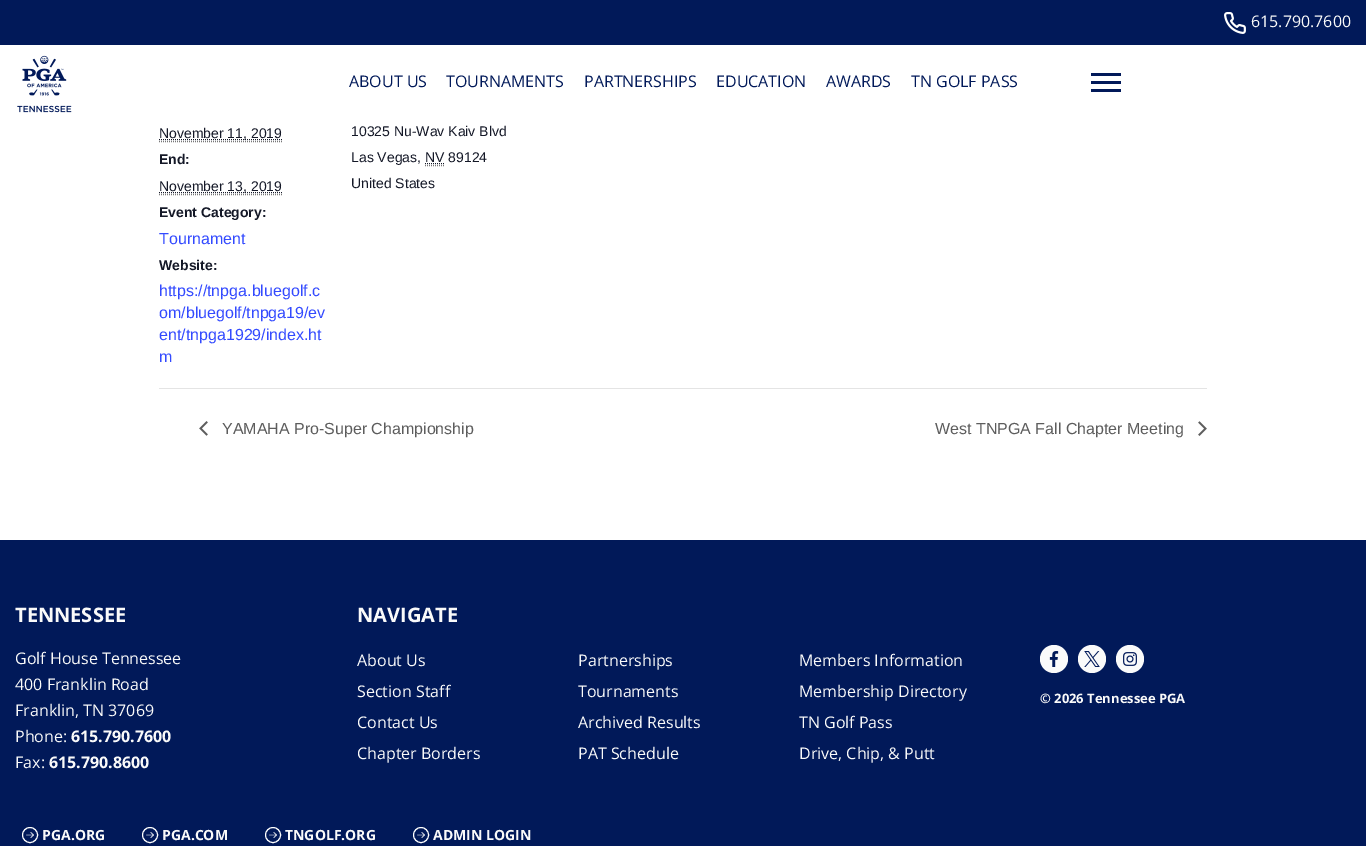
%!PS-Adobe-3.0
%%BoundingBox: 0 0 1366 846
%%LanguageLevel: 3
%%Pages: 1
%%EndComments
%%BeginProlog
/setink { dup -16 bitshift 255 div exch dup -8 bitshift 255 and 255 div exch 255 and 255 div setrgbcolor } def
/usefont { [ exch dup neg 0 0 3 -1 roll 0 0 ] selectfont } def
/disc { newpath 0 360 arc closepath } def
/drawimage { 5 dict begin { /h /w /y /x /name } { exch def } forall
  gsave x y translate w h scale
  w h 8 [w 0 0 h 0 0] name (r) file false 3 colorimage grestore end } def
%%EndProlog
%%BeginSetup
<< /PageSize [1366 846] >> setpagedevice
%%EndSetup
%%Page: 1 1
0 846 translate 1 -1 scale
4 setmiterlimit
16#FFFFFF setink
0 0 1366 846 rectfill
16#011959 setink
0 0 1366 45 rectfill
(img1.raw) 1224 12 22 22 drawimage
/OpenSans-Regular 16 usefont
16#FAFAFA setink
1251 27 moveto (615.790.7600) show
(img2.raw) 17 55 55 58 drawimage
16#011959 setink
[
    [(ABOUT US) 349 87]
    [(TOURNAMENTS) 446 87]
    [(PARTNERSHIPS) 584 87]
    [(EDUCATION) 716 87]
    [(AWARDS) 826 87]
    [(TN GOLF PASS) 911 87]
] { aload pop moveto show } forall
[
    [1091 73 30 3 16#011959]
    [1091 81 30 3 16#011959]
    [1091 89 30 3 16#011959]
] { aload pop setink rectfill } forall
16#141827 setink
[1 1] 0 setdash
159 139.5 moveto 282 139.5 lineto stroke
/LiberationSans-Regular 14 usefont
159 138 moveto (November 11, 2019) show
16#777777 setink
159 141.5 moveto 282 141.5 lineto stroke
/LiberationSans-Bold 14 usefont
16#141827 setink
159 164 moveto (End:) show
159 192.5 moveto 282 192.5 lineto stroke
/LiberationSans-Regular 14 usefont
159 191 moveto (November 13, 2019) show
16#777777 setink
159 194.5 moveto 282 194.5 lineto stroke
/LiberationSans-Bold 14 usefont
16#141827 setink
159 217 moveto (Event Category:) show
/LiberationSans-Regular 16 usefont
16#334AFF setink
159 244 moveto (Tournament) show
/LiberationSans-Bold 14 usefont
16#141827 setink
159 270 moveto (Website:) show
/LiberationSans-Regular 16 usefont
16#334AFF setink
[
    [(https://tnpga.bluegolf.c) 159 296]
    [(om/bluegolf/tnpga19/ev) 159 318]
    [(ent/tnpga1929/index.ht) 159 340]
    [(m) 159 362]
] { aload pop moveto show } forall
/LiberationSans-Regular 14 usefont
16#141827 setink
351 136 moveto (10325 Nu-Wav Kaiv Blvd) show
351 162 moveto (Las Vegas, NV 89124) show
16#777777 setink
425 165.5 moveto 444 165.5 lineto stroke
16#141827 setink
425 163.5 moveto 444.5 163.5 lineto stroke
351 188 moveto (United States) show
16#E4E4E4 setink
159 388 1048 1 rectfill
(img3.raw) 199 421 9 15 drawimage
/LiberationSans-Regular 16 usefont
16#5D5D5D setink
222 434 moveto (YAMAHA Pro-Super Championship) show
935 434 moveto (West TNPGA Fall Chapter Meeting) show
(img4.raw) 1198 421 9 15 drawimage
16#011959 setink
0 540 1366 306 rectfill
/OpenSans-Bold 20 usefont
16#FAFAFA setink
15 622 moveto (TENNESSEE) show
/OpenSans-Regular 16 usefont
[
    [(Golf House Tennessee) 15 664]
    [(400 Franklin Road) 15 690]
    [(Franklin, TN 37069) 15 716]
    [(Phone:) 15 742]
] { aload pop moveto show } forall
/OpenSans-Bold 16 usefont
71 742 moveto (615.790.7600) show
/OpenSans-Regular 16 usefont
15 768 moveto (Fax:) show
/OpenSans-Bold 16 usefont
49 768 moveto (615.790.8600) show
/OpenSans-Bold 20 usefont
357 622 moveto (NAVIGATE) show
/OpenSans-Regular 16 usefont
[
    [(About Us) 357 666]
    [(Partnerships) 578 666]
    [(Members Information) 799 666]
    [(Section Staff) 357 697]
    [(Tournaments) 578 697]
    [(Membership Directory) 799 697]
    [(Contact Us) 357 728]
    [(Archived Results) 578 728]
    [(TN Golf Pass) 799 728]
    [(Chapter Borders) 357 759]
    [(PAT Schedule) 578 759]
    [(Drive, Chip, & Putt) 799 759]
] { aload pop moveto show } forall
1054 659 14 disc fill
(img5.raw) 1049 651 10 16 drawimage
1092 659 14 disc fill
(img6.raw) 1084 651 16 16 drawimage
1130 659 14 disc fill
(img7.raw) 1123 652 14 14 drawimage
/OpenSans-Bold 13 usefont
1040 703 moveto (© 2026 Tennessee PGA) show
(img8.raw) 26 832 8 6 drawimage
16#FFFFFF setink
[] 0 setdash
30 835 7.5 disc stroke
/OpenSans-Bold 14 usefont
16#FAFAFA setink
42 840 moveto (PGA.ORG) show
(img9.raw) 146 832 8 6 drawimage
16#FFFFFF setink
150 835 7.5 disc stroke
16#FAFAFA setink
162 840 moveto (PGA.COM) show
(img8.raw) 269 832 8 6 drawimage
16#FFFFFF setink
273 835 7.5 disc stroke
16#FAFAFA setink
285 840 moveto (TNGOLF.ORG) show
(img8.raw) 417 832 8 6 drawimage
16#FFFFFF setink
421 835 7.5 disc stroke
16#FAFAFA setink
433 840 moveto (ADMIN LOGIN) show
showpage
%%EOF
